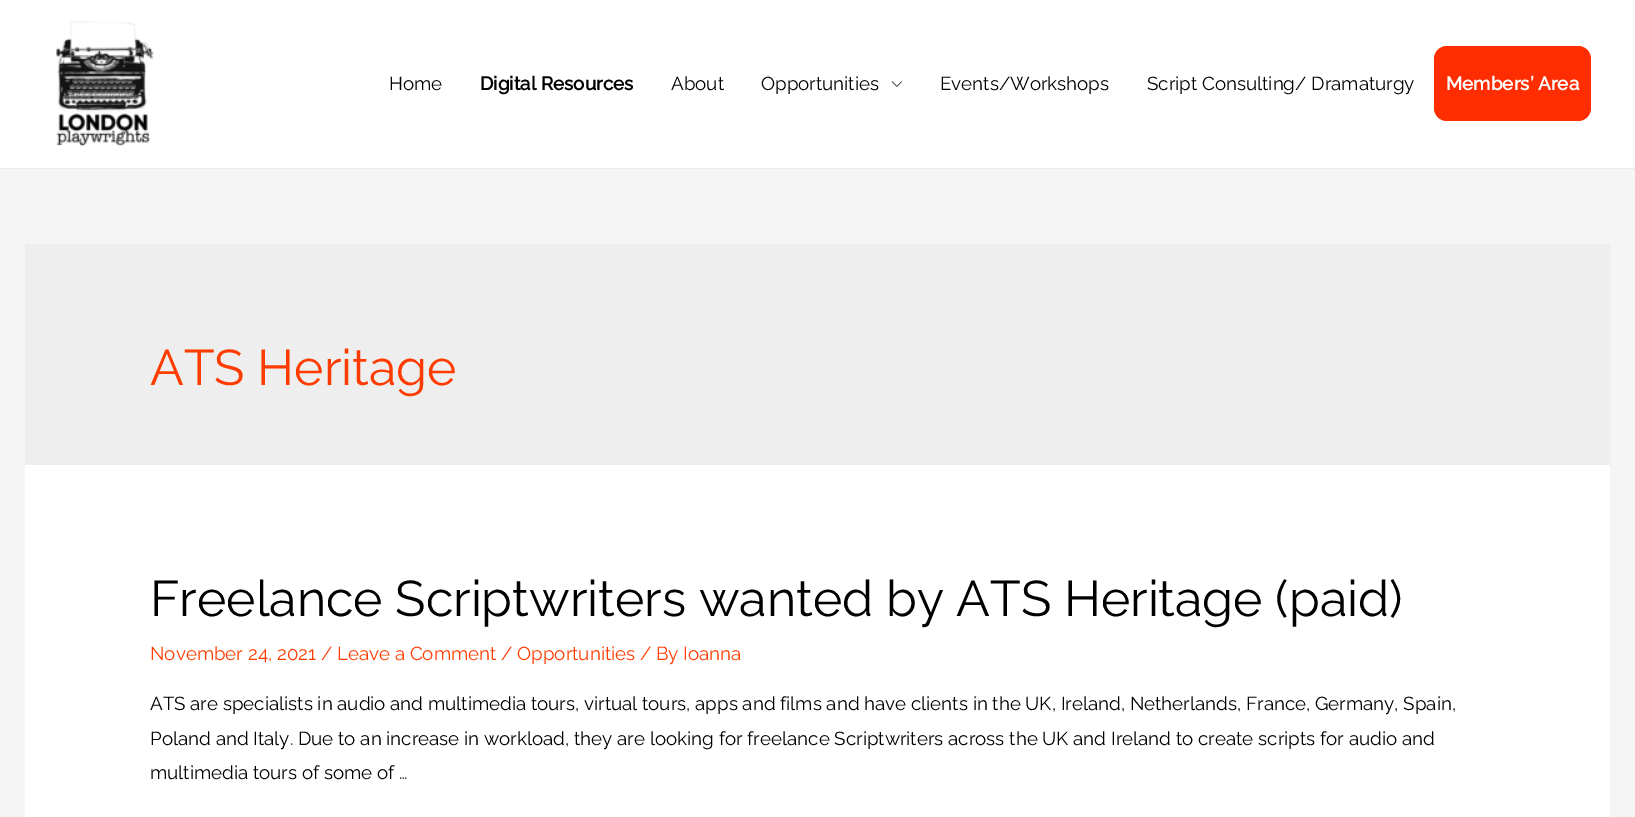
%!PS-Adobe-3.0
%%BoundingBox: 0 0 1635 817
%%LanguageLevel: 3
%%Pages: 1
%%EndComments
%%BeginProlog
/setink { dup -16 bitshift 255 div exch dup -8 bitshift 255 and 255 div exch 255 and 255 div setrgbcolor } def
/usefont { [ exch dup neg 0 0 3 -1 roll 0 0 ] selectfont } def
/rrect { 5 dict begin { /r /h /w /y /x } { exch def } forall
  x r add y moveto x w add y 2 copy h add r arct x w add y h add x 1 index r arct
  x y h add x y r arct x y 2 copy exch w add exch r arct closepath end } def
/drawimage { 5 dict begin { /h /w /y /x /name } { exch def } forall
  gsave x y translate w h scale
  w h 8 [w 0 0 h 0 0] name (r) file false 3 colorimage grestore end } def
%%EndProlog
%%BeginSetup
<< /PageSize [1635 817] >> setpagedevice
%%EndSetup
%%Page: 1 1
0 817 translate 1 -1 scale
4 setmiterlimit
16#F5F5F5 setink
0 0 1635 817 rectfill
16#FFFFFF setink
0 0 1635 168 rectfill
16#EAEAEA setink
0 168 1635 1 rectfill
(img1.raw) 56 21 98 126 drawimage
/Raleway-Thin 18.75 usefont
16#000000 setink
389 90 moveto (Home) show
/Raleway-Bold 18.75 usefont
480 90 moveto (Digital Resources) show
/Raleway-Thin 18.75 usefont
671 90 moveto (About) show
761 90 moveto (Opportunities) show
(img2.raw) 891 81 11 6 drawimage
940 90 moveto (Events/Workshops) show
1147 90 moveto (Script Consulting/ Dramaturgy) show
16#FF2D00 setink
1434 46 157 75 13 rrect fill
/Raleway-Bold 18.75 usefont
16#FFFFFF setink
1446 90 moveto (Members’ Area) show
16#EEEEEE setink
25 244 1585 221 rectfill
/Raleway-Thin 50 usefont
16#FF3B00 setink
150 385 moveto (ATS Heritage) show
16#FFFFFF setink
25 465 1585 352 rectfill
16#000000 setink
150 616 moveto (Freelance Scriptwriters wanted by ATS Heritage \(paid\)) show
/Raleway-Thin 18.75 usefont
16#FF3B00 setink
150 660 moveto (November 24, 2021 / Leave a Comment / Opportunities / By Ioanna) show
16#000000 setink
[
    [(ATS are specialists in audio and multimedia tours, virtual tours, apps and films and have clients in the UK, Ireland, Netherlands, France, Germany, Spain,) 150 710]
    [(Poland and Italy. Due to an increase in workload, they are looking for freelance Scriptwriters across the UK and Ireland to create scripts for audio and) 150 745]
    [(multimedia tours of some of …) 150 779]
] { aload pop moveto show } forall
showpage
%%EOF
